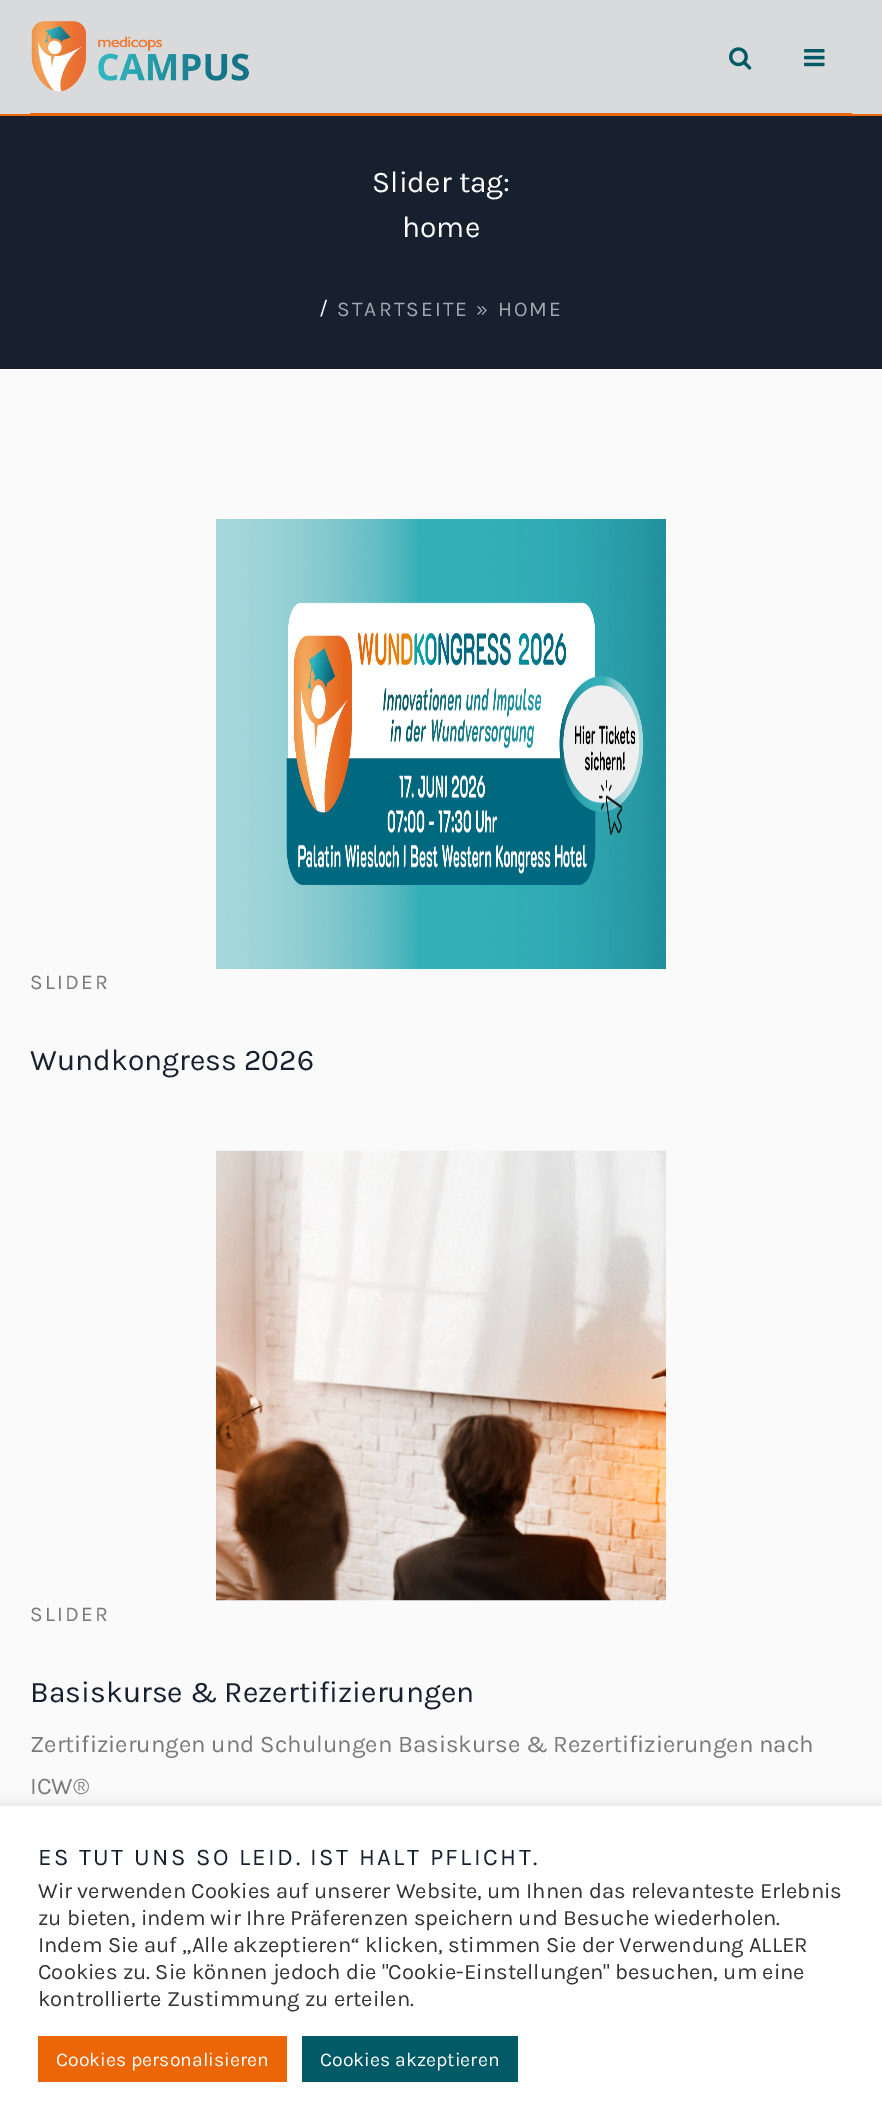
%!PS-Adobe-3.0
%%BoundingBox: 0 0 882 2126
%%LanguageLevel: 3
%%Pages: 1
%%EndComments
%%BeginProlog
/setink { dup -16 bitshift 255 div exch dup -8 bitshift 255 and 255 div exch 255 and 255 div setrgbcolor } def
/usefont { [ exch dup neg 0 0 3 -1 roll 0 0 ] selectfont } def
/setalpha { dup .setfillconstantalpha .setstrokeconstantalpha } def
/rrect { 5 dict begin { /r /h /w /y /x } { exch def } forall
  x r add y moveto x w add y 2 copy h add r arct x w add y h add x 1 index r arct
  x y h add x y r arct x y 2 copy exch w add exch r arct closepath end } def
/softshadow { 12 dict begin { /a /b /q /h /w /y /x } { exch def } forall gsave /was 0 def
  9 -2 -9 { dup b mul 4 div /e exch def 1 sub .425 mul 2.718 exch exp 1 add a .99 .min exch div /now exch def
    1 1 now sub 1 was sub div sub setalpha /was now def
    w h .min e 2 mul add 0 gt { x e sub y e sub w e 2 mul add h e 2 mul add
      q e add b .6 mul add w h .min 2 div e add .min 0 .max rrect fill } if } for grestore end } def
/drawimage { 5 dict begin { /h /w /y /x /name } { exch def } forall
  gsave x y translate w h scale
  w h 8 [w 0 0 h 0 0] name (r) file false 3 colorimage grestore end } def
%%EndProlog
%%BeginSetup
<< /PageSize [882 2126] /PageUsesTransparency true >> setpagedevice
%%EndSetup
%%Page: 1 1
0 .pushpdf14devicefilter
0 2126 translate 1 -1 scale
4 setmiterlimit
16#FAFAFA setink
0 0 882 2126 rectfill
16#D8DADC setink
0 0 882 114 rectfill
16#EC6608 setink
0 114 882 2 rectfill
(img1.raw) 31 21 218 71 drawimage
(img2.raw) 729 47 23 23 drawimage
(img3.raw) 804 49 21 18 drawimage
30 113 822 1 rectfill
16#16202F setink
0 116 882 253 rectfill
/Karla-Regular 30 usefont
16#FFFFFF setink
372 192 moveto (Slider tag:) show
402 237 moveto (home) show
/Karla-Regular 21 usefont
319 315 moveto 2.1 0 (/) ashow
16#A2A6AC setink
337 316 moveto 2.1 0 (STARTSEITE » HOME) ashow
(img4.raw) 216 519 450 450 drawimage
16#797979 setink
30 989 moveto 2.1 0 (SLIDER) ashow
/Karla-Regular 30 usefont
16#16202F setink
30 1070 moveto (Wundkongress 2026) show
(img5.raw) 216 1150 450 451 drawimage
/Karla-Regular 21 usefont
16#797979 setink
30 1621 moveto 2.1 0 (SLIDER) ashow
/Karla-Regular 30 usefont
16#16202F setink
30 1702 moveto (Basiskurse & Rezertifizierungen) show
/Karla-Regular 24 usefont
16#797979 setink
30 1752 moveto (Zertifizierungen und Schulungen Basiskurse & Rezertifizierungen nach) show
30 1794 moveto (ICW®) show
16#ACABAB setink
0 1805 882 321 0 7.5 0.3 softshadow
16#FFFFFF setink
0 1806 882 320 rectfill
16#16202F setink
38 1865 moveto 2.4 0 (ES TUT UNS SO LEID. IST HALT PFLICHT.) ashow
/Karla-Regular 22 usefont
16#333333 setink
[
    [(Wir verwenden Cookies auf unserer Website, um Ihnen das relevanteste Erlebnis) 38 1898]
    [(zu bieten, indem wir Ihre Präferenzen speichern und Besuche wiederholen.) 38 1925]
    [(Indem Sie auf „Alle akzeptieren“ klicken, stimmen Sie der Verwendung ALLER) 38 1952]
    [(Cookies zu. Sie können jedoch die "Cookie-Einstellungen" besuchen, um eine) 38 1979]
    [(kontrollierte Zustimmung zu erteilen.) 38 2006]
] { aload pop moveto show } forall
16#EC6608 setink
38 2036 249 46 rectfill
/Karla-Regular 19.5 usefont
16#FFFFFF setink
56 2066 moveto (Cookies personalisieren) show
16#025A66 setink
302 2036 216 46 rectfill
16#FFFFFF setink
320 2066 moveto (Cookies akzeptieren) show
.poppdf14devicefilter showpage
%%EOF
